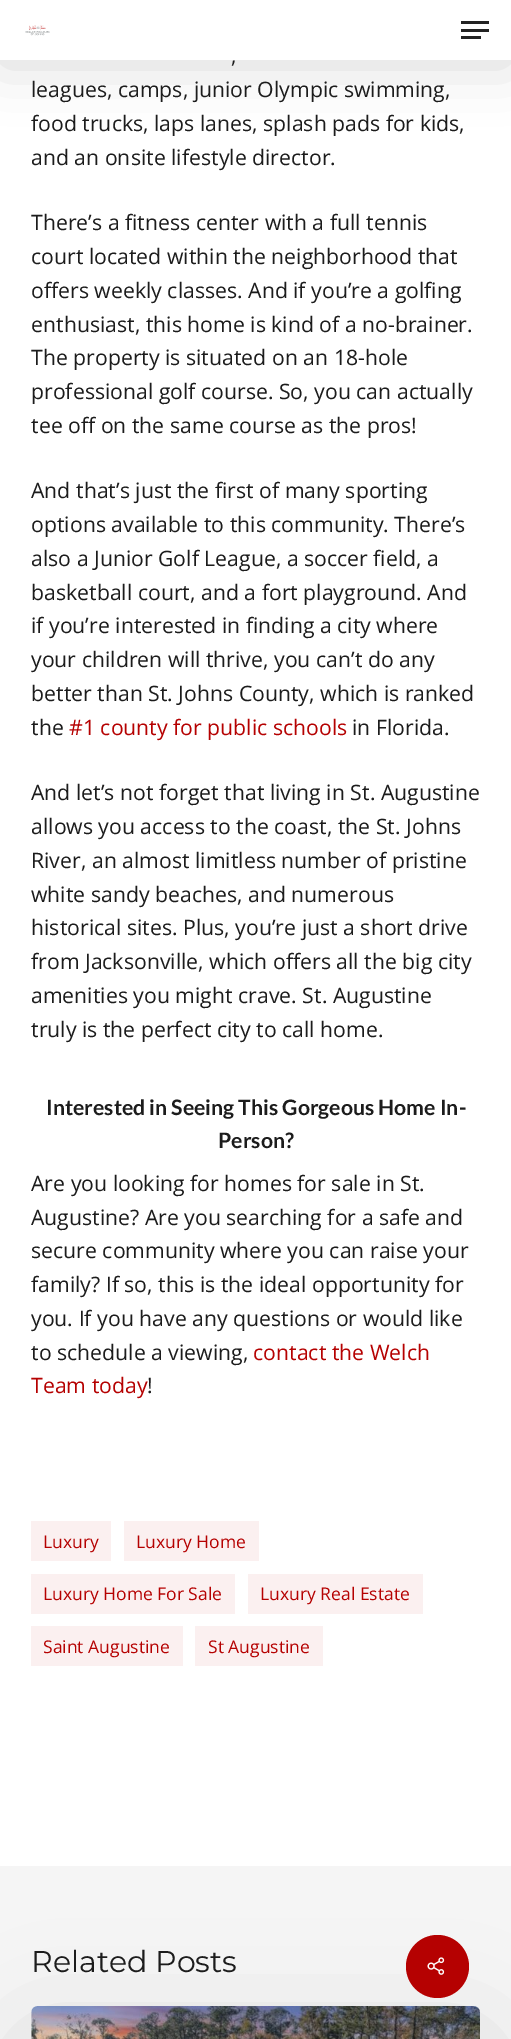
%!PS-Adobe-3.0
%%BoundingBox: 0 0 511 2039
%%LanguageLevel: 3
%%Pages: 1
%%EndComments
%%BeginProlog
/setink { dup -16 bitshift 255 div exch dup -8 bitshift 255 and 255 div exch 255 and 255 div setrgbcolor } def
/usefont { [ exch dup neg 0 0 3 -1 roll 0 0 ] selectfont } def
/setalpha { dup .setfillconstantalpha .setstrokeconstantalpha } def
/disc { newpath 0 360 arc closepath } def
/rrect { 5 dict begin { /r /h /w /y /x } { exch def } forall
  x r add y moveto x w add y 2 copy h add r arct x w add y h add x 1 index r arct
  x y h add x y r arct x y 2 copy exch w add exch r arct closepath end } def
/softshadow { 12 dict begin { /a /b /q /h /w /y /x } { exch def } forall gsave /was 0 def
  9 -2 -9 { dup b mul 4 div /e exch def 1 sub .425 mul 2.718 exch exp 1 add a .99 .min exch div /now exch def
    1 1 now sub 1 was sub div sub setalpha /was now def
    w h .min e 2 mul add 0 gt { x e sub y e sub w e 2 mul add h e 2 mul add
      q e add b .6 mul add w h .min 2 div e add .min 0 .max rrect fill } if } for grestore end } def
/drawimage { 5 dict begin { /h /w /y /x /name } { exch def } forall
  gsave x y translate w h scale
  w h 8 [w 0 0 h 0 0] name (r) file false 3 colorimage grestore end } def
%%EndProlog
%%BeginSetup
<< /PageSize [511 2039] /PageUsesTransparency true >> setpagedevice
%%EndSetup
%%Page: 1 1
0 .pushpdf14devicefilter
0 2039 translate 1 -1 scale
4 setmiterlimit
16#FFFFFF setink
0 0 511 2039 rectfill
16#F5F5F5 setink
0 1866 511 173 rectfill
16#000000 setink
0 4 511 60 0 28 0.15 softshadow
16#FFFFFF setink
0 0 511 60 rectfill
(img1.raw) 25 25 25 11 drawimage
[
    [461 21 28 3 16#232323]
    [461 36 20 3 16#232323]
    [461 29 28 3 16#232323]
] { aload pop setink rectfill } forall
/OpenSans-Regular 21.25 usefont
16#1C1C1C setink
[
    [(,) 231 63]
    [(leagues, camps, junior Olympic swimming,) 31 97]
    [(food trucks, laps lanes, splash pads for kids,) 31 131]
    [(and an onsite lifestyle director.) 31 165]
    [(There’s a fitness center with a full tennis) 31 230]
    [(court located within the neighborhood that) 31 264]
    [(offers weekly classes. And if you’re a golfing) 31 298]
    [(enthusiast, this home is kind of a no-brainer.) 31 332]
    [(The property is situated on an 18-hole) 31 365]
    [(professional golf course. So, you can actually) 31 399]
    [(tee off on the same course as the pros!) 31 433]
    [(And that’s just the first of many sporting) 31 498]
    [(options available to this community. There’s) 31 532]
    [(also a Junior Golf League, a soccer field, a) 31 566]
    [(basketball court, and a fort playground. And) 31 600]
    [(if you’re interested in finding a city where) 31 633]
    [(your children will thrive, you can’t do any) 31 667]
    [(better than St. Johns County, which is ranked) 31 701]
    [(the) 31 735]
] { aload pop moveto show } forall
16#B50101 setink
69 735 moveto (#1 county for public schools) show
16#1C1C1C setink
[
    [(in Florida.) 352 735]
    [(And let’s not forget that living in St. Augustine) 31 800]
    [(allows you access to the coast, the St. Johns) 31 834]
    [(River, an almost limitless number of pristine) 31 868]
    [(white sandy beaches, and numerous) 31 902]
    [(historical sites. Plus, you’re just a short drive) 31 935]
    [(from Jacksonville, which offers all the big city) 31 969]
    [(amenities you might crave. St. Augustine) 31 1003]
    [(truly is the perfect city to call home.) 31 1037]
] { aload pop moveto show } forall
/Lato-Bold 21.25 usefont
46 1115 moveto (Interested in Seeing This Gorgeous Home In-) show
218 1148 moveto (Person?) show
/OpenSans-Regular 21.25 usefont
[
    [(Are you looking for homes for sale in St.) 31 1191]
    [(Augustine? Are you searching for a safe and) 31 1225]
    [(secure community where you can raise your) 31 1258]
    [(family? If so, this is the ideal opportunity for) 31 1292]
    [(you. If you have any questions or would like) 31 1326]
    [(to schedule a viewing,) 31 1360]
] { aload pop moveto show } forall
16#B50101 setink
253 1360 moveto (contact the Welch) show
31 1393 moveto (Team today) show
16#1C1C1C setink
147 1393 moveto (!) show
0.06 setalpha
16#B50101 setink
31 1521 80 40 rectfill
/OpenSans-Regular 17.5 usefont
1 setalpha
43 1548 moveto (Luxury) show
0.06 setalpha
124 1521 135 40 rectfill
1 setalpha
136 1548 moveto (Luxury Home) show
0.06 setalpha
31 1574 204 40 rectfill
1 setalpha
43 1600 moveto (Luxury Home For Sale) show
0.06 setalpha
248 1574 175 40 rectfill
1 setalpha
260 1600 moveto (Luxury Real Estate) show
0.06 setalpha
31 1626 152 40 rectfill
1 setalpha
43 1653 moveto (Saint Augustine) show
0.06 setalpha
195 1626 128 40 rectfill
1 setalpha
208 1653 moveto (St Augustine) show
16#000000 setink
31 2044 449 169 6 56 0.14 softshadow
(img2.raw) 31 2006 449 33 drawimage
/Montserrat-Regular 30 usefont
16#1C1C1C setink
31 1972 moveto (Related Posts) show
16#B50101 setink
437.5 1966.5 31.5 disc fill
(img3.raw) 427 1957 18 18 drawimage
.poppdf14devicefilter showpage
%%EOF
